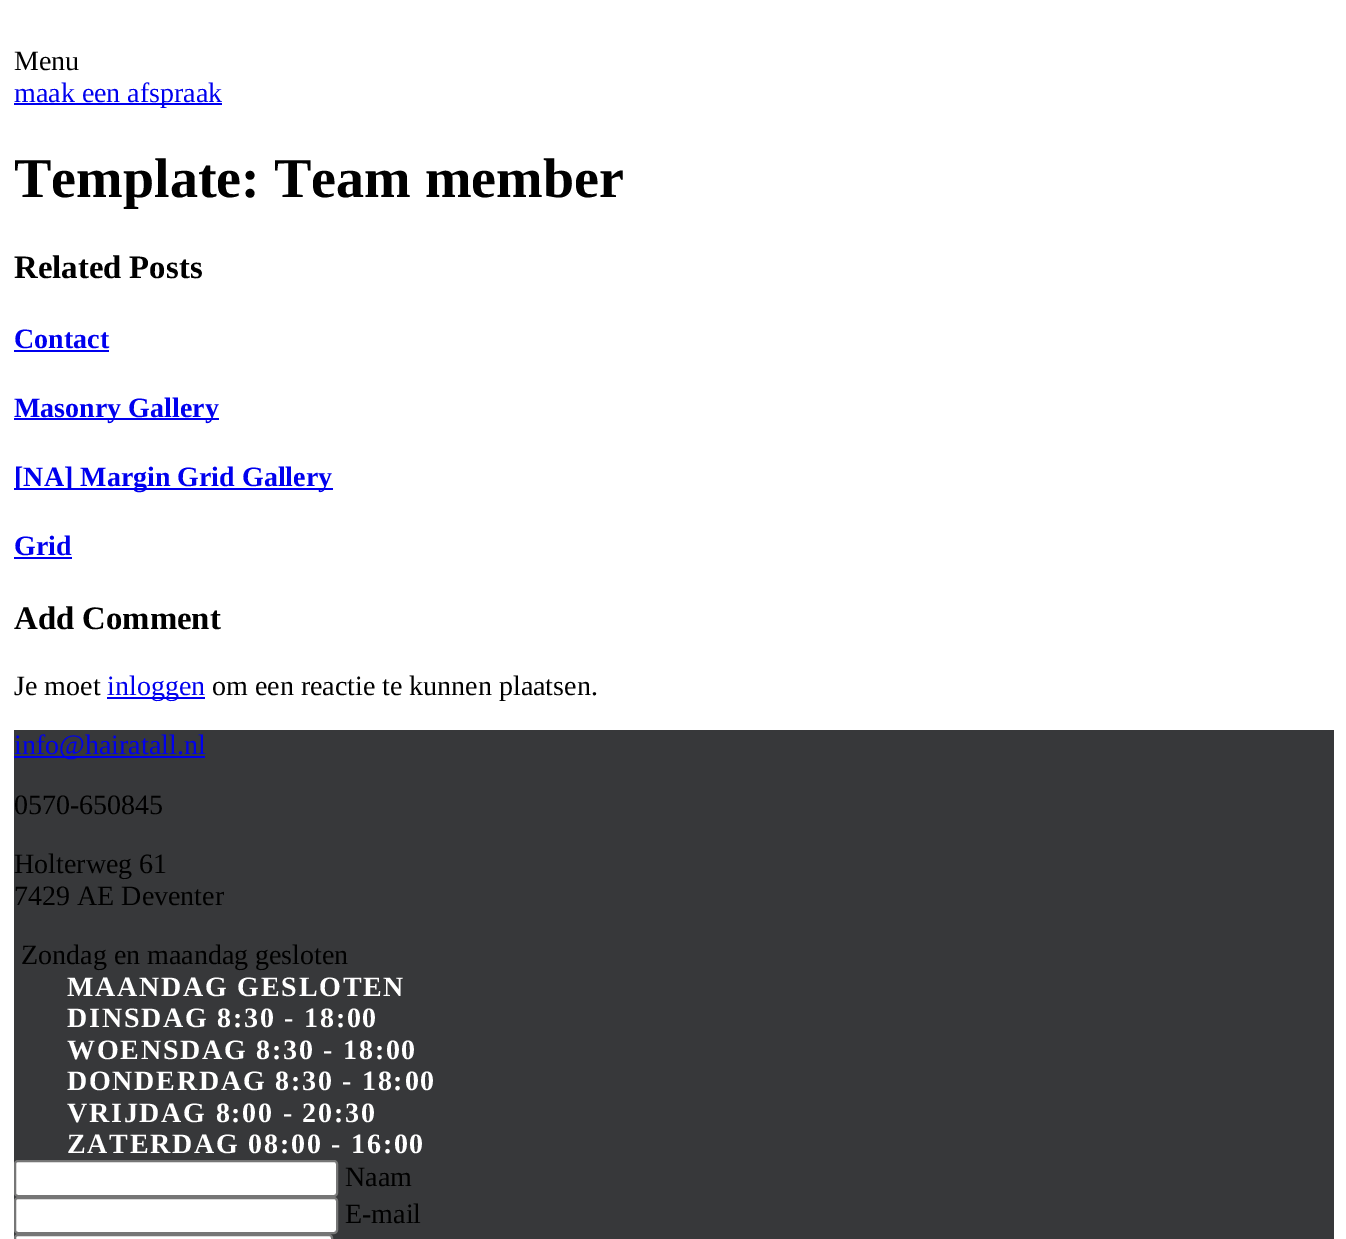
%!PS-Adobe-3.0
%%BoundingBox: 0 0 1346 1239
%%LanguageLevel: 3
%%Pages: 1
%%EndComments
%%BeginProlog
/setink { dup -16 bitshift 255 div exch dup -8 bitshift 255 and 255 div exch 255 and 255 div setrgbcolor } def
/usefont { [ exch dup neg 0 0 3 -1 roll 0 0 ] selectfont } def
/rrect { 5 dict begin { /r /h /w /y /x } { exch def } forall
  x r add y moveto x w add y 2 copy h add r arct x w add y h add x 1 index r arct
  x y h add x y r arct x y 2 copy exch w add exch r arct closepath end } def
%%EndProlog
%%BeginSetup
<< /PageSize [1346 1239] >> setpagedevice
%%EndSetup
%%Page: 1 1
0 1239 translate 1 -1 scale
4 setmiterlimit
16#FFFFFF setink
0 0 1346 1239 rectfill
/LiberationSerif-Regular 28 usefont
16#000000 setink
14 70 moveto (Menu) show
16#0000EE setink
14 103 208 2 rectfill
14 102 moveto (maak een afspraak) show
/LiberationSerif-Bold 56 usefont
16#000000 setink
14 197 moveto (Template: Team member) show
/LiberationSerif-Bold 32.75 usefont
14 278 moveto (Related Posts) show
/LiberationSerif-Bold 28 usefont
16#0000EE setink
14 348 moveto (Contact) show
14 350 95 2 rectfill
14 418 205 2 rectfill
14 417 moveto (Masonry Gallery) show
14 488 319 2 rectfill
14 486 moveto ([NA] Margin Grid Gallery) show
14 555 moveto (Grid) show
14 557 58 2 rectfill
/LiberationSerif-Bold 32.75 usefont
16#000000 setink
14 629 moveto (Add Comment) show
/LiberationSerif-Regular 28 usefont
14 695 moveto (Je moet) show
16#0000EE setink
107 697 98 2 rectfill
107 695 moveto (inloggen) show
16#000000 setink
212 695 moveto (om een reactie te kunnen plaatsen.) show
16#37383A setink
14 730 1320 509 rectfill
16#0000EE setink
14 756 191 2 rectfill
14 754 moveto (info@hairatall.nl) show
16#000000 setink
[
    [(0570-650845) 14 814]
    [(Holterweg 61) 14 873]
    [(7429 AE Deventer) 14 905]
    [(Zondag en maandag gesloten) 21 964]
] { aload pop moveto show } forall
/LiberationSerif-Bold 28 usefont
16#FFFFFF setink
67 996 moveto 1.75 0 (MAANDAG GESLOTEN) ashow
67 1027 moveto 1.75 0 (DINSDAG 8:30 - 18:00) ashow
67 1059 moveto 1.75 0 (WOENSDAG 8:30 - 18:00) ashow
67 1090 moveto 1.75 0 (DONDERDAG 8:30 - 18:00) ashow
67 1122 moveto 1.75 0 (VRIJDAG 8:00 - 20:30) ashow
67 1153 moveto 1.75 0 (ZATERDAG 08:00 - 16:00) ashow
15 1161 322 35 3 rrect gsave fill grestore
16#767676 setink
2 setlinewidth
stroke
/LiberationSerif-Regular 28 usefont
16#000000 setink
345 1186 moveto (Naam) show
16#FFFFFF setink
15 1198 322 35 3 rrect gsave fill grestore
16#767676 setink
stroke
16#000000 setink
345 1223 moveto (E-mail) show
16#FFFFFF setink
15 1235 317 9 3 rrect gsave fill grestore
16#767676 setink
stroke
showpage
%%EOF
